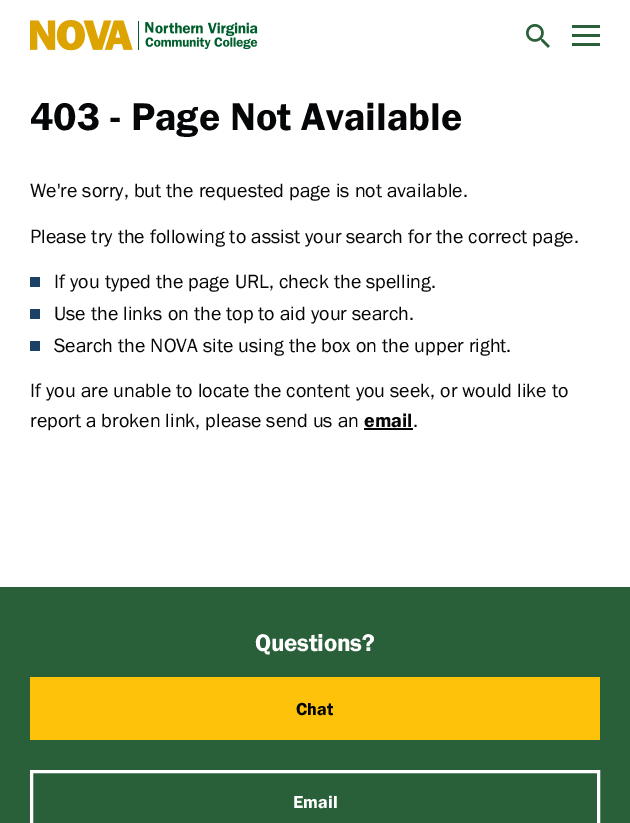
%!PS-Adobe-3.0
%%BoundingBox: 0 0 630 823
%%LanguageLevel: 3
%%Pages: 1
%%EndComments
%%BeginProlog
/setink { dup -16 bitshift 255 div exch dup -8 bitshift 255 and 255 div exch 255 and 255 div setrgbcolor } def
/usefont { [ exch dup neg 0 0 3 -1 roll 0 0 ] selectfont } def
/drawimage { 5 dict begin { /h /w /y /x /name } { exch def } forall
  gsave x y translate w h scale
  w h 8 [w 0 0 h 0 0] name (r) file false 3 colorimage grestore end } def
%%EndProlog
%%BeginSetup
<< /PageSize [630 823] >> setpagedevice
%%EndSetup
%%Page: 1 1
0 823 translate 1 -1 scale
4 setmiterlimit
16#FFFFFF setink
0 0 630 823 rectfill
(img1.raw) 30 20 228 31 drawimage
(img2.raw) 526 24 24 24 drawimage
[
    [572 34 28 3 16#296039]
    [572 25 28 3 16#296039]
    [572 43 28 3 16#296039]
] { aload pop setink rectfill } forall
/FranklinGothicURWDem-Regular 40 usefont
16#050607 setink
30 130 moveto (403 - Page Not Available) show
/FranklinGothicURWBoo-Regular 20 usefont
30 197 moveto (We're sorry, but the requested page is not available.) show
30 243 moveto (Please try the following to assist your search for the correct page.) show
16#1B4167 setink
30 277 10 10 rectfill
16#050607 setink
54 288 moveto (If you typed the page URL, check the spelling.) show
16#1B4167 setink
30 309 10 10 rectfill
16#050607 setink
54 320 moveto (Use the links on the top to aid your search.) show
16#1B4167 setink
30 341 10 10 rectfill
16#050607 setink
[
    [(Search the NOVA site using the box on the upper right.) 54 352]
    [(If you are unable to locate the content you seek, or would like to) 30 397]
    [(report a broken link, please send us an) 30 427]
] { aload pop moveto show } forall
/FranklinGothicURWDem-Regular 20 usefont
364 427 moveto (email) show
364 428 49 2 rectfill
/FranklinGothicURWBoo-Regular 20 usefont
413 427 moveto (.) show
16#296039 setink
0 587 630 236 rectfill
/FranklinGothicURWDem-Regular 25 usefont
16#FFFFFF setink
255 651 moveto -0.25 0 (Questions?) ashow
16#FFC20B setink
30 677 570 63 rectfill
/FranklinGothicURWDem-Regular 18 usefont
16#050607 setink
296 715 moveto (Chat) show
16#FFFFFF setink
3 setlinewidth
31.5 771.5 567 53 rectstroke
293 808 moveto (Email) show
showpage
%%EOF
